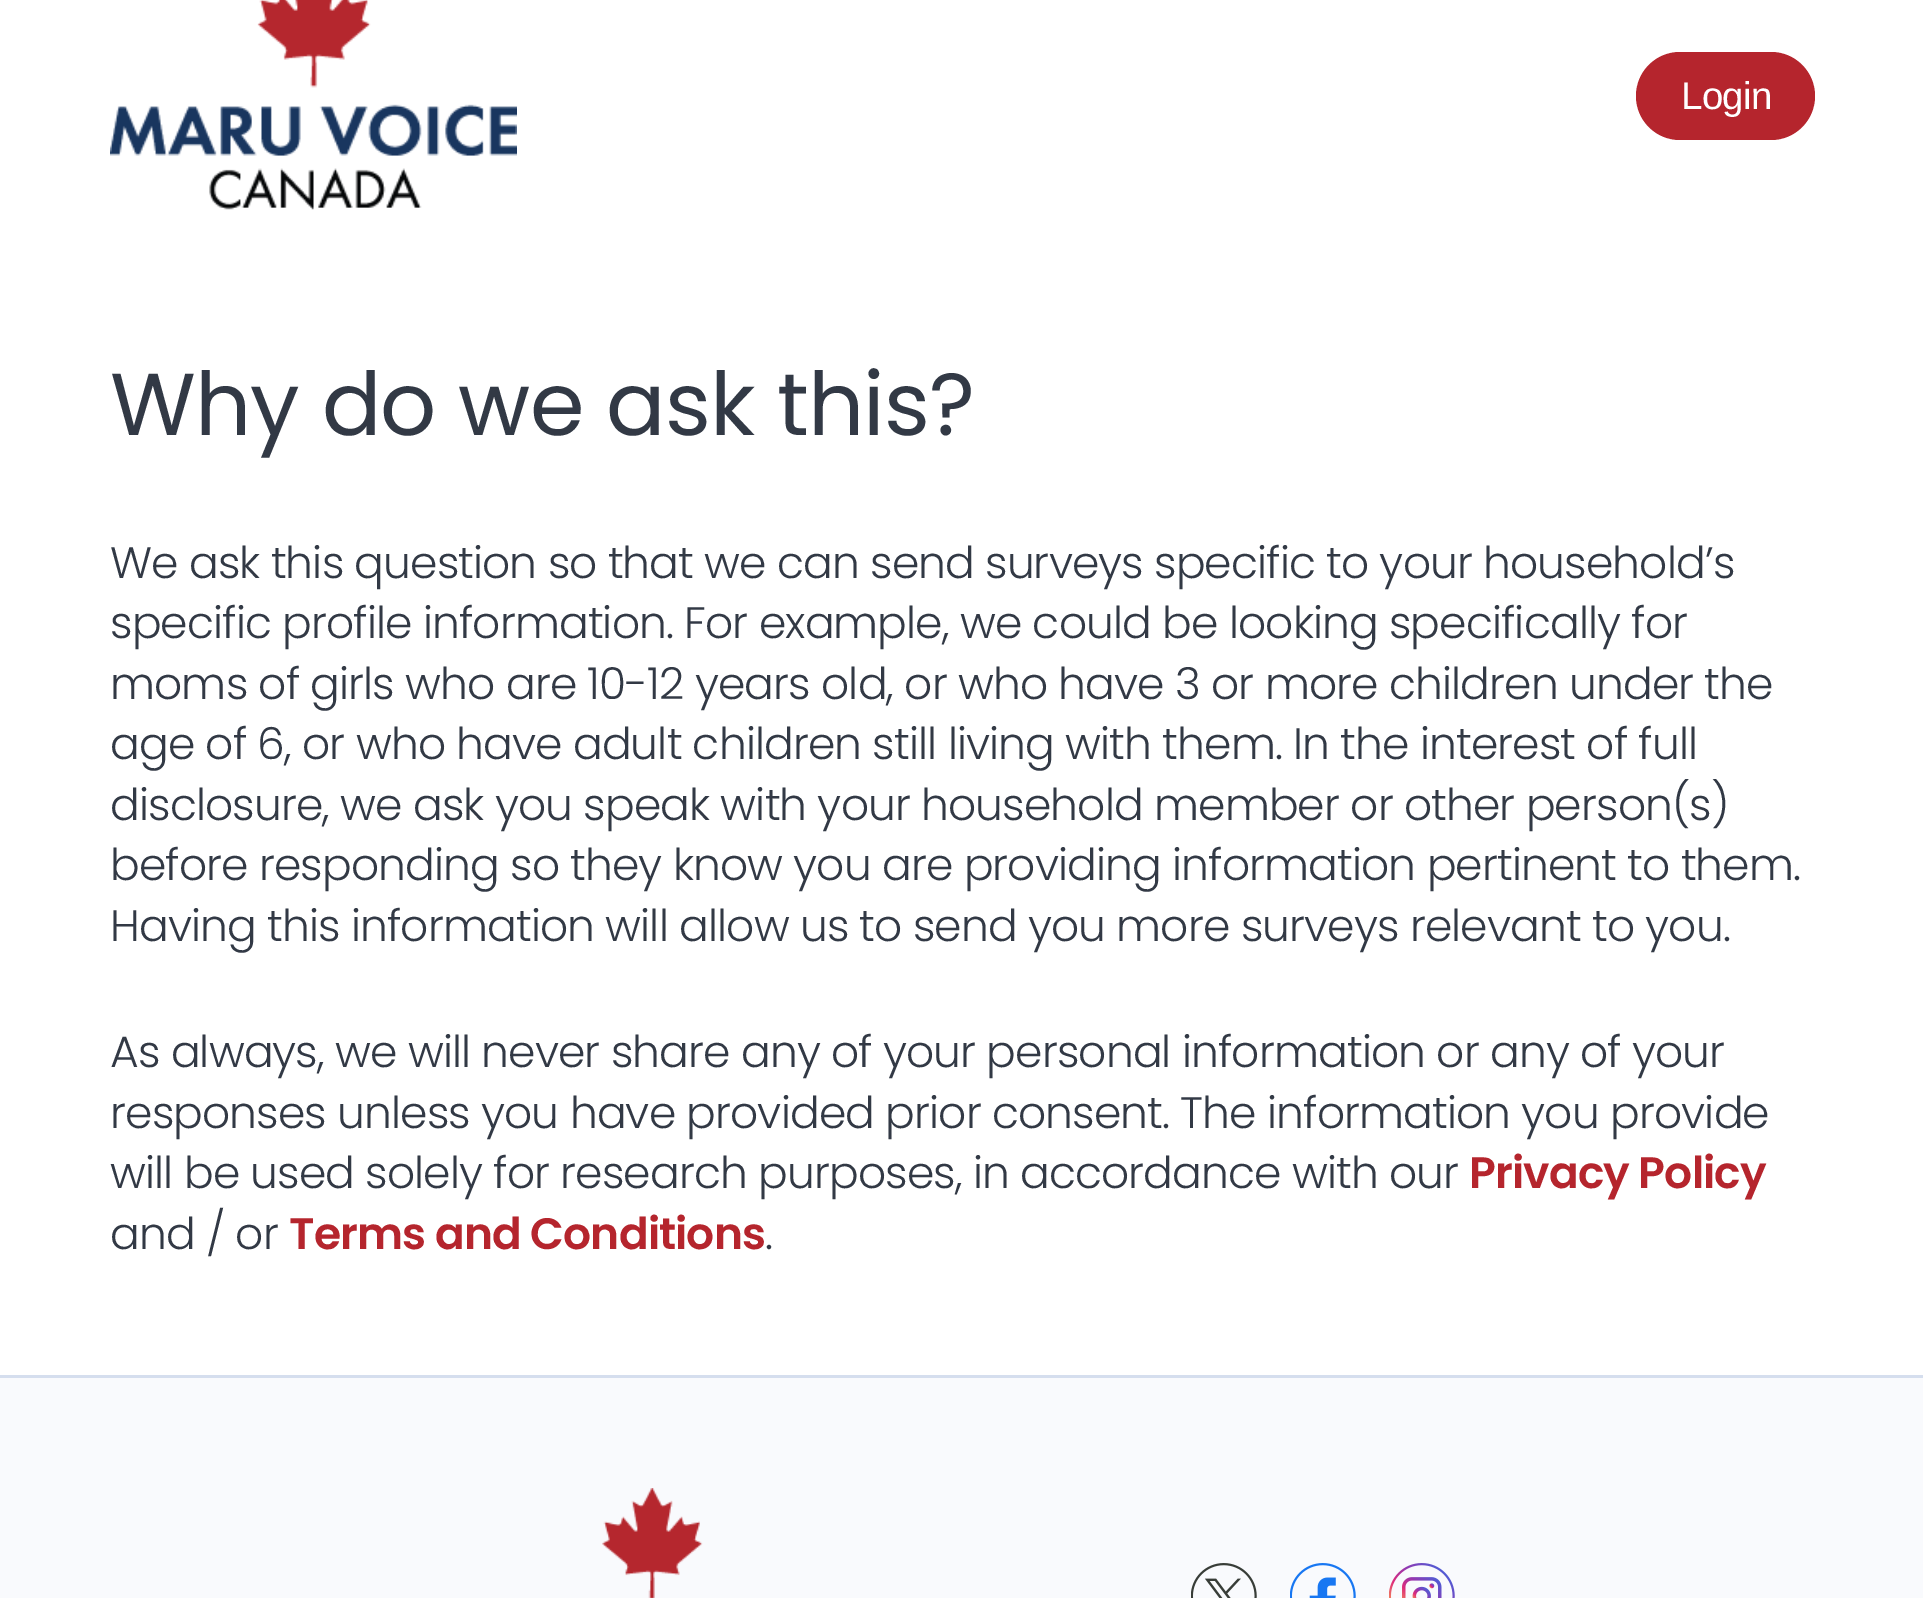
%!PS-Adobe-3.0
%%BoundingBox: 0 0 1923 1598
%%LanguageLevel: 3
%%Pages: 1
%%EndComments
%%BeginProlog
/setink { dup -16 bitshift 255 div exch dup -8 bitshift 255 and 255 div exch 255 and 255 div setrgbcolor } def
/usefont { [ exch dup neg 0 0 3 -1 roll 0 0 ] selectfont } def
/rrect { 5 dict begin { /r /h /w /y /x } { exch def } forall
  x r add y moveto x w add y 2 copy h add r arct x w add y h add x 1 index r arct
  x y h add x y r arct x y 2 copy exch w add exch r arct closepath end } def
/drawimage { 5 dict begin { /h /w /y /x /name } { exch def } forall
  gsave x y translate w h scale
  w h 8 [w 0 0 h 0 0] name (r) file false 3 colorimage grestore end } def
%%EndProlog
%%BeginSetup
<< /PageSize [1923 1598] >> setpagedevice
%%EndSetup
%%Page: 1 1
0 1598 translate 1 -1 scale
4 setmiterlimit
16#FFFFFF setink
0 0 1923 1598 rectfill
(img1.raw) 110 0 407 210 drawimage
16#B5252D setink
1636 52 179 88 44 rrect fill
/LiberationSans-Regular 38.5 usefont
16#FFFFFF setink
1681 109 moveto -0.75 0 (Login) ashow
/Poppins-Regular 88 usefont
16#323945 setink
110 435 moveto -0.88 0 (Why do we ask this?) ashow
/Poppins-Light 44 usefont
110 578 moveto -0.88 0 (We ask this question so that we can send surveys specific to your household’s) ashow
110 638 moveto -0.88 0 (specific profile information. For example, we could be looking specifically for) ashow
110 699 moveto -0.88 0 (moms of girls who are 10-12 years old, or who have 3 or more children under the) ashow
110 759 moveto -0.88 0 (age of 6, or who have adult children still living with them. In the interest of full) ashow
110 820 moveto -0.88 0 (disclosure, we ask you speak with your household member or other person\(s\)) ashow
110 880 moveto -0.88 0 (before responding so they know you are providing information pertinent to them.) ashow
110 941 moveto -0.88 0 (Having this information will allow us to send you more surveys relevant to you.) ashow
110 1067 moveto -0.88 0 (As always, we will never share any of your personal information or any of your) ashow
110 1128 moveto -0.88 0 (responses unless you have provided prior consent. The information you provide) ashow
110 1188 moveto -0.88 0 (will be used solely for research purposes, in accordance with our) ashow
/Poppins-SemiBold 44 usefont
16#B5252D setink
1469 1188 moveto -0.88 0 (Privacy Policy) ashow
/Poppins-Light 44 usefont
16#323945 setink
110 1249 moveto -0.88 0 (and / or) ashow
/Poppins-SemiBold 44 usefont
16#B5252D setink
289 1249 moveto -0.88 0 (Terms and Conditions) ashow
/Poppins-Light 44 usefont
16#323945 setink
765 1249 moveto -0.88 0 (.) ashow
16#F9FAFD setink
0 1378 1923 220 rectfill
16#D5DEEE setink
0 1375 1923 3 rectfill
(img2.raw) 602 1488 101 110 drawimage
(img3.raw) 1191 1563 66 35 drawimage
(img4.raw) 1290 1563 66 35 drawimage
(img5.raw) 1389 1563 66 35 drawimage
showpage
%%EOF
